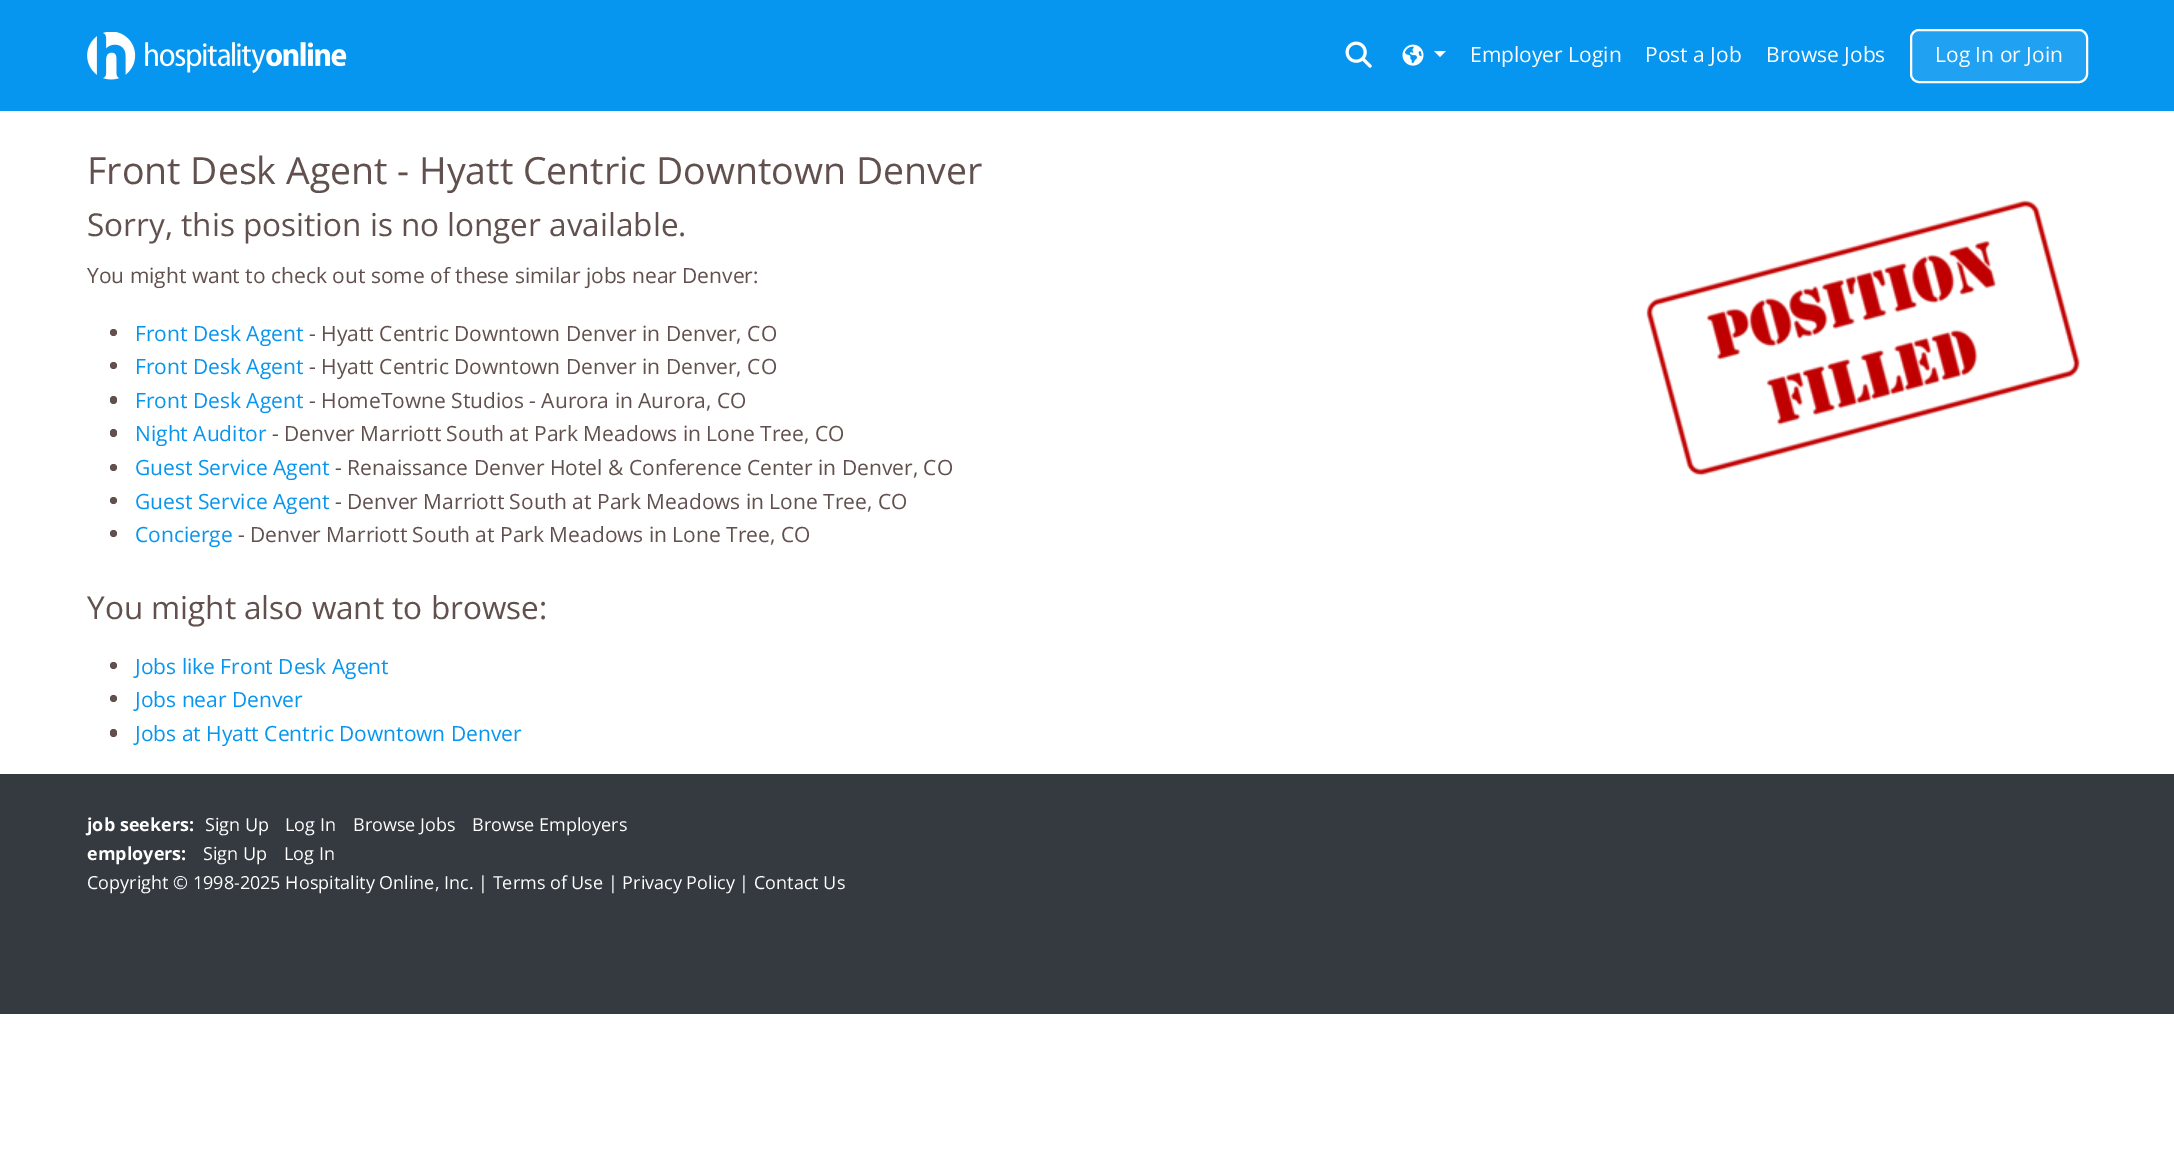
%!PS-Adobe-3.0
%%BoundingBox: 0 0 2174 1150
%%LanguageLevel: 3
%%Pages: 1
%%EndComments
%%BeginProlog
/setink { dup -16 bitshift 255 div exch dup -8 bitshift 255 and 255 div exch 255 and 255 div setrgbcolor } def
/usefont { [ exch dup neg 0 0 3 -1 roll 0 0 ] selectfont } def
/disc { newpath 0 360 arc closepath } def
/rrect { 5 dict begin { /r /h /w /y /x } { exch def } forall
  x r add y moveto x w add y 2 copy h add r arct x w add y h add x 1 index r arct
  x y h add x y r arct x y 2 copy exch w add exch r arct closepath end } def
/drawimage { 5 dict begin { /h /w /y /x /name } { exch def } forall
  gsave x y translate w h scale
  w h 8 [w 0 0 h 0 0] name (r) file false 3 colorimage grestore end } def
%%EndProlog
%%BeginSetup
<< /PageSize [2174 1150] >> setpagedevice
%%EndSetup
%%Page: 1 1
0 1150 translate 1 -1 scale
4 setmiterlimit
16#FFFFFF setink
0 0 2174 1150 rectfill
16#0796EF setink
0 0 2174 111 rectfill
(img1.raw) 87 32 260 48 drawimage
(img2.raw) 1345 41 27 27 drawimage
(img3.raw) 1402 44 22 22 drawimage
16#FFFFFF setink
1434 51 moveto 1446 51 lineto 1440 57 lineto closepath fill
/OpenSans-Regular 21 usefont
[
    [(Employer Login) 1470 62]
    [(Post a Job) 1645 62]
    [(Browse Jobs) 1766 62]
] { aload pop moveto show } forall
16#20A1F1 setink
1911 30 176 52 8 rrect gsave fill grestore
16#FFFFFF setink
2 setlinewidth
stroke
1935 62 moveto (Log In or Join) show
/OpenSans-Regular 37.5 usefont
16#61504D setink
87 184 moveto (Front Desk Agent - Hyatt Centric Downtown Denver) show
/OpenSans-Regular 31.5 usefont
87 236 moveto (Sorry, this position is no longer available.) show
/OpenSans-Regular 21 usefont
87 283 moveto (You might want to check out some of these similar jobs near Denver:) show
113.5 332.5 3.5 disc fill
16#0796EF setink
135 341 moveto (Front Desk Agent) show
16#61504D setink
309 341 moveto (- Hyatt Centric Downtown Denver in Denver, CO) show
113.5 365.5 3.5 disc fill
16#0796EF setink
135 374 moveto (Front Desk Agent) show
16#61504D setink
309 374 moveto (- Hyatt Centric Downtown Denver in Denver, CO) show
110 396 7 8 3.5 rrect fill
16#0796EF setink
135 408 moveto (Front Desk Agent) show
16#61504D setink
309 408 moveto (- HomeTowne Studios - Aurora in Aurora, CO) show
110 429 7 8 3.5 rrect fill
16#0796EF setink
135 441 moveto (Night Auditor) show
16#61504D setink
272 441 moveto (- Denver Marriott South at Park Meadows in Lone Tree, CO) show
113.5 467.5 3.5 disc fill
16#0796EF setink
135 475 moveto (Guest Service Agent) show
16#61504D setink
335 475 moveto (- Renaissance Denver Hotel & Conference Center in Denver, CO) show
113.5 500.5 3.5 disc fill
16#0796EF setink
135 509 moveto (Guest Service Agent) show
16#61504D setink
335 509 moveto (- Denver Marriott South at Park Meadows in Lone Tree, CO) show
113.5 533.5 3.5 disc fill
16#0796EF setink
135 542 moveto (Concierge) show
16#61504D setink
238 542 moveto (- Denver Marriott South at Park Meadows in Lone Tree, CO) show
/OpenSans-Regular 31.5 usefont
87 619 moveto (You might also want to browse:) show
113.5 665.5 3.5 disc fill
/OpenSans-Regular 21 usefont
16#0796EF setink
135 674 moveto (Jobs like Front Desk Agent) show
16#61504D setink
113.5 698.5 3.5 disc fill
16#0796EF setink
135 707 moveto (Jobs near Denver) show
16#61504D setink
110 729 7 8 3.5 rrect fill
16#0796EF setink
135 741 moveto (Jobs at Hyatt Centric Downtown Denver) show
(img4.raw) 1646 200 435 276 drawimage
16#343A40 setink
0 774 2174 240 rectfill
/OpenSans-Bold 18 usefont
16#FFFFFF setink
87 831 moveto (job seekers:) show
/OpenSans-Regular 18 usefont
[
    [(Sign Up) 205 831]
    [(Log In) 285 831]
    [(Browse Jobs) 353 831]
    [(Browse Employers) 472 831]
] { aload pop moveto show } forall
/OpenSans-Bold 18 usefont
87 860 moveto (employers:) show
/OpenSans-Regular 18 usefont
[
    [(Sign Up) 203 860]
    [(Log In) 284 860]
    [(Copyright © 1998-2025 Hospitality Online, Inc. | Terms of Use | Privacy Policy | Contact Us) 87 889]
] { aload pop moveto show } forall
showpage
%%EOF
